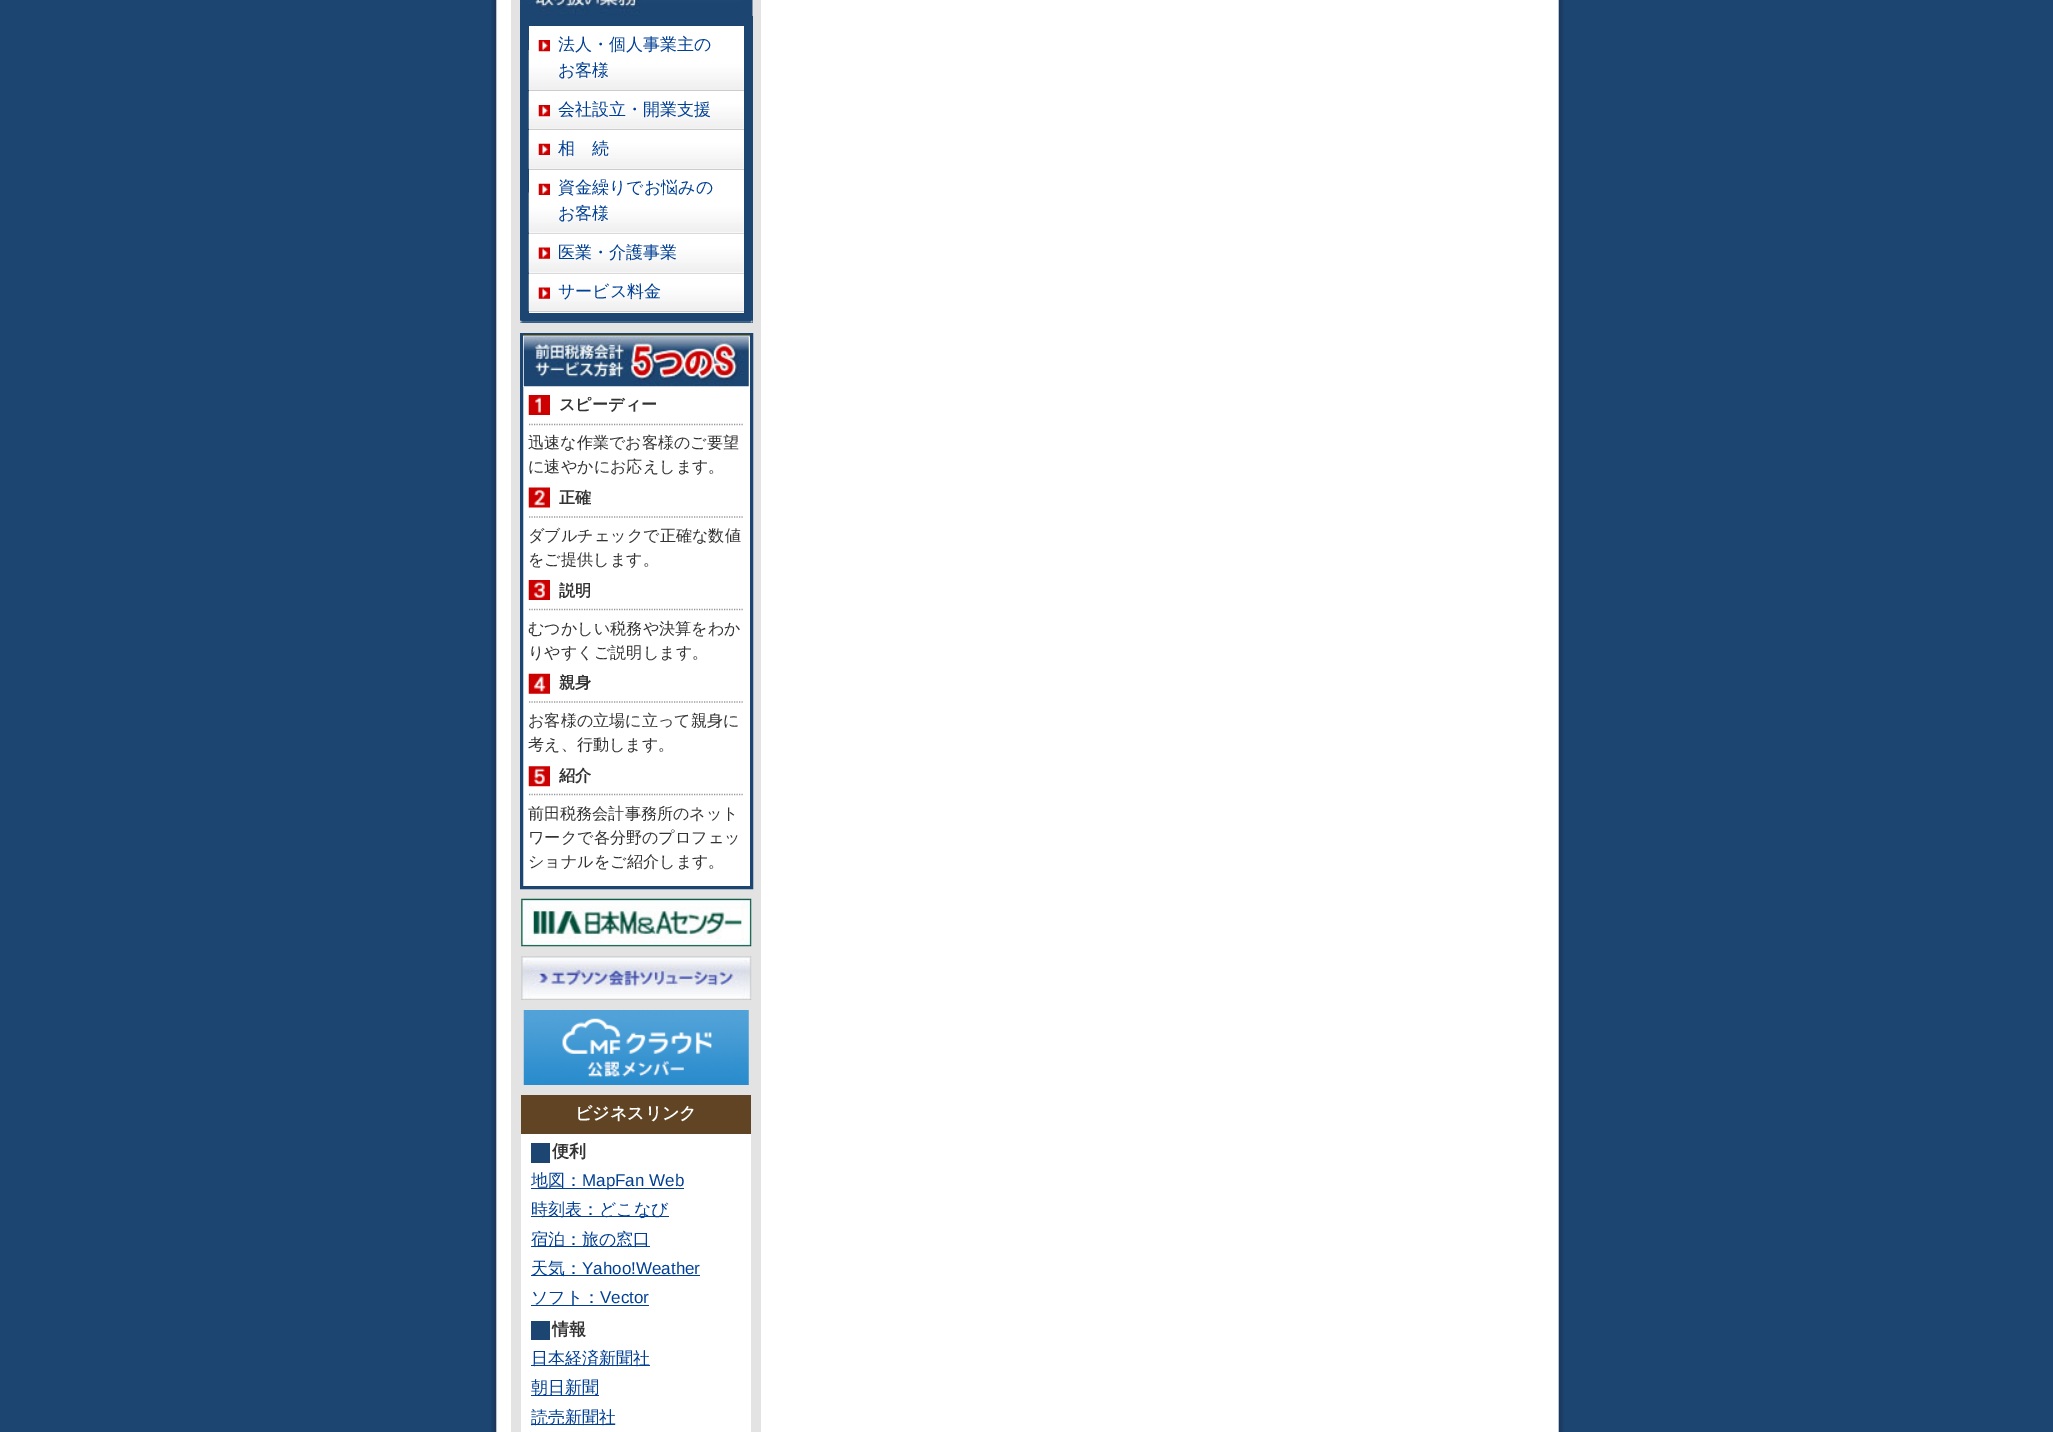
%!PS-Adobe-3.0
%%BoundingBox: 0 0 2053 1432
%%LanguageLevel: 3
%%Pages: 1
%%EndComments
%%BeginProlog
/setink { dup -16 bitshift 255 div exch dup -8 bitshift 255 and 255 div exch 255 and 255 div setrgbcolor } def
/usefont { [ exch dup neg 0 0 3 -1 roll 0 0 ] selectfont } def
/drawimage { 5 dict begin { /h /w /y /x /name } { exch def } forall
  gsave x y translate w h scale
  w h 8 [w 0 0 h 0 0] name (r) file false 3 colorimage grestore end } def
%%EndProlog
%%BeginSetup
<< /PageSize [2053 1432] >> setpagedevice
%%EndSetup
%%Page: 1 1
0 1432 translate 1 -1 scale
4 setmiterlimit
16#1C4571 setink
0 0 2053 1432 rectfill
(img1.raw) 491 0 1073 1432 drawimage
16#E3E3E3 setink
511 0 250 1432 rectfill
(img2.raw) 520 0 233 16 drawimage
16#1D4572 setink
520 16 233 307 rectfill
(img3.raw) 520 320 233 3 drawimage
16#FFFFFF setink
529 26 215 64 rectfill
(img4.raw) 528 50 216 40 drawimage
16#CCCCCC setink
529 90 215 1 rectfill
(img5.raw) 538 40 12 12 drawimage
/WenQuanYiZenHei-Medium 17 usefont
16#003F93 setink
558 50 moveto (法人・個人事業主の) show
558 76 moveto (お客様) show
16#FFFFFF setink
529 91 215 38 rectfill
(img6.raw) 528 91 216 38 drawimage
16#CCCCCC setink
529 129 215 1 rectfill
(img7.raw) 538 105 12 12 drawimage
16#003F93 setink
558 115 moveto (会社設立・開業支援) show
16#FFFFFF setink
529 130 215 39 rectfill
(img8.raw) 528 130 216 39 drawimage
16#CCCCCC setink
529 169 215 1 rectfill
(img9.raw) 538 143 12 12 drawimage
16#003F93 setink
558 154 moveto (相　続) show
16#FFFFFF setink
529 170 215 63 rectfill
(img10.raw) 528 192 216 41 drawimage
16#CCCCCC setink
529 233 215 1 rectfill
(img11.raw) 538 183 12 12 drawimage
16#003F93 setink
558 193 moveto (資金繰りでお悩みの) show
558 219 moveto (お客様) show
16#FFFFFF setink
529 234 215 39 rectfill
(img12.raw) 528 233 216 40 drawimage
16#CCCCCC setink
529 273 215 1 rectfill
(img13.raw) 538 247 12 12 drawimage
16#003F93 setink
558 258 moveto (医業・介護事業) show
16#FFFFFF setink
529 274 215 39 rectfill
(img14.raw) 528 273 216 39 drawimage
16#CCCCCC setink
529 311 215 1 rectfill
(img15.raw) 538 287 12 12 drawimage
16#003F93 setink
558 297 moveto (サービス料金) show
16#FFFFFF setink
521.5 334.5 moveto 751.5 334.5 lineto 751.5 887.5 lineto 521.5 887.5 lineto closepath gsave fill grestore
16#1D4572 setink
3 setlinewidth
stroke
16#9E8B3F setink
523 335 227 1 rectfill
(img16.raw) 523 336 226 51 drawimage
(img17.raw) 528 395 22 20 drawimage
16#999999 setink
1.2 setlinewidth
[1.25 1.25] 0 setdash
529 424.5 moveto 744 424.5 lineto stroke
/WenQuanYiZenHei-Bold 16.1 usefont
16#333333 setink
559 410 moveto (スピーディー) show
/WenQuanYiZenHei-Medium 16.1 usefont
528 448 moveto (迅速な作業でお客様のご要望) show
528 472 moveto (に速やかにお応えします。) show
(img18.raw) 528 487 22 21 drawimage
16#999999 setink
529 517 moveto 744 517 lineto stroke
/WenQuanYiZenHei-Bold 16.1 usefont
16#333333 setink
559 503 moveto (正確) show
/WenQuanYiZenHei-Medium 16.1 usefont
528 541 moveto (ダブルチェックで正確な数値) show
528 565 moveto (をご提供します。) show
(img19.raw) 528 580 22 20 drawimage
16#999999 setink
529 609.5 moveto 744 609.5 lineto stroke
/WenQuanYiZenHei-Bold 16.1 usefont
16#333333 setink
559 596 moveto (説明) show
/WenQuanYiZenHei-Medium 16.1 usefont
528 634 moveto (むつかしい税務や決算をわか) show
528 658 moveto (りやすくご説明します。) show
(img20.raw) 528 673 22 21 drawimage
16#999999 setink
529 702 moveto 744 702 lineto stroke
/WenQuanYiZenHei-Bold 16.1 usefont
16#333333 setink
559 688 moveto (親身) show
/WenQuanYiZenHei-Medium 16.1 usefont
528 726 moveto (お客様の立場に立って親身に) show
528 750 moveto (考え、行動します。) show
(img21.raw) 528 766 22 21 drawimage
16#999999 setink
529 794.5 moveto 744 794.5 lineto stroke
/WenQuanYiZenHei-Bold 16.1 usefont
16#333333 setink
559 781 moveto (紹介) show
/WenQuanYiZenHei-Medium 16.1 usefont
[
    [(前田税務会計事務所のネット) 528 819]
    [(ワークで各分野のプロフェッ) 528 843]
    [(ショナルをご紹介します。) 528 867]
] { aload pop moveto show } forall
(img22.raw) 521 898 231 49 drawimage
(img23.raw) 521 956 231 44 drawimage
(img24.raw) 523 1010 226 75 drawimage
16#FFFFFF setink
521 1134 230 298 rectfill
16#604424 setink
521 1095 230 39 rectfill
/WenQuanYiZenHei-Bold 17 usefont
16#FFFFFF setink
575 1119 moveto (ビジネスリンク) show
16#1C4571 setink
531 1143 19 20 rectfill
16#333333 setink
552 1157 moveto (便利) show
16#003F93 setink
531 1188 153 1 rectfill
/WenQuanYiZenHei-Medium 17 usefont
531 1186 moveto (地図：) show
/LiberationSans-Regular 17 usefont
582 1186 moveto (MapFan Web) show
531 1216 138 1 rectfill
/WenQuanYiZenHei-Medium 17 usefont
531 1215 moveto (時刻表：どこなび) show
531 1246 119 1 rectfill
531 1245 moveto (宿泊：旅の窓口) show
531 1275 169 1 rectfill
531 1274 moveto (天気：) show
/LiberationSans-Regular 17 usefont
582 1274 moveto (Yahoo!Weather) show
531 1305 118 1 rectfill
/WenQuanYiZenHei-Medium 17 usefont
531 1303 moveto (ソフト：) show
/LiberationSans-Regular 17 usefont
600 1303 moveto (Vector) show
16#1C4571 setink
531 1321 19 19 rectfill
/WenQuanYiZenHei-Bold 17 usefont
16#333333 setink
552 1335 moveto (情報) show
16#003F93 setink
531 1365 119 1 rectfill
/WenQuanYiZenHei-Medium 17 usefont
531 1364 moveto (日本経済新聞社) show
531 1395 68 1 rectfill
531 1393 moveto (朝日新聞) show
531 1424 84 1 rectfill
531 1423 moveto (読売新聞社) show
showpage
%%EOF
